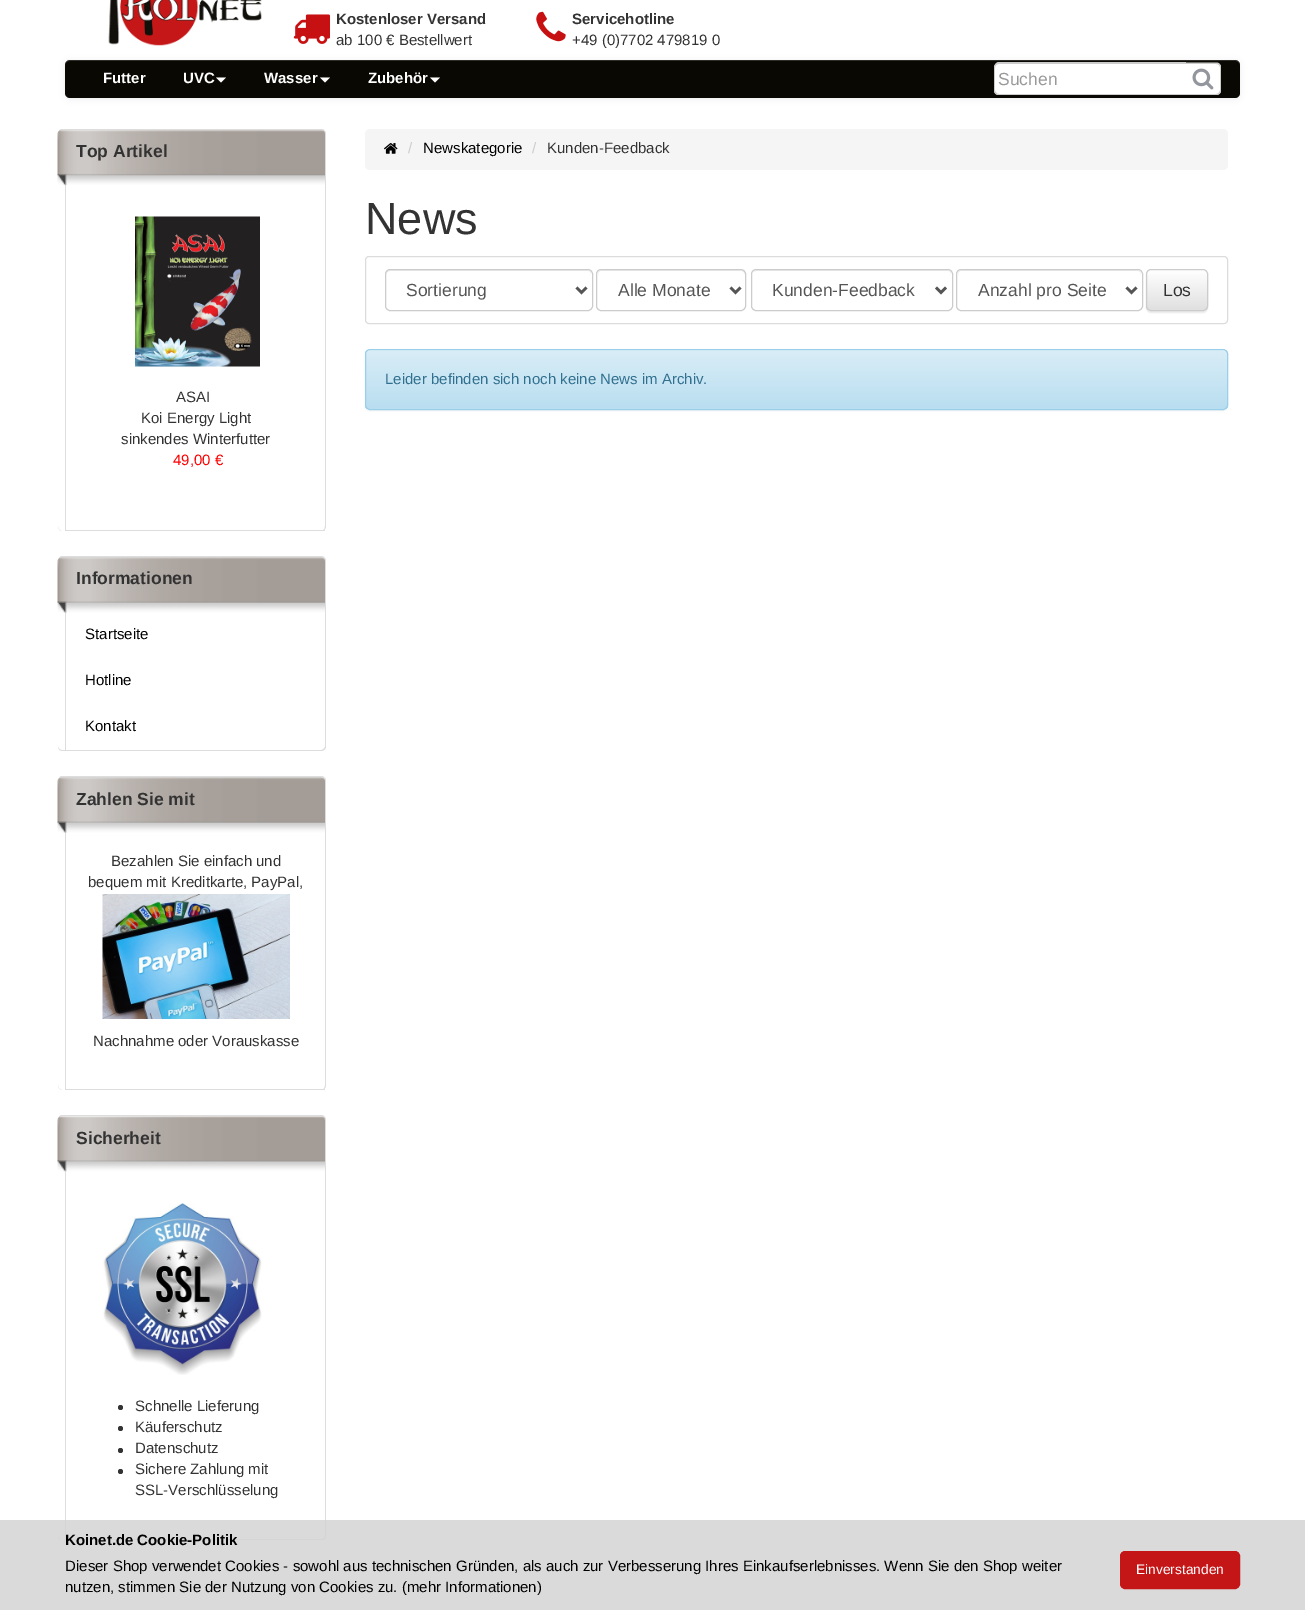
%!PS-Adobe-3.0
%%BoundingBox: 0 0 1305 1610
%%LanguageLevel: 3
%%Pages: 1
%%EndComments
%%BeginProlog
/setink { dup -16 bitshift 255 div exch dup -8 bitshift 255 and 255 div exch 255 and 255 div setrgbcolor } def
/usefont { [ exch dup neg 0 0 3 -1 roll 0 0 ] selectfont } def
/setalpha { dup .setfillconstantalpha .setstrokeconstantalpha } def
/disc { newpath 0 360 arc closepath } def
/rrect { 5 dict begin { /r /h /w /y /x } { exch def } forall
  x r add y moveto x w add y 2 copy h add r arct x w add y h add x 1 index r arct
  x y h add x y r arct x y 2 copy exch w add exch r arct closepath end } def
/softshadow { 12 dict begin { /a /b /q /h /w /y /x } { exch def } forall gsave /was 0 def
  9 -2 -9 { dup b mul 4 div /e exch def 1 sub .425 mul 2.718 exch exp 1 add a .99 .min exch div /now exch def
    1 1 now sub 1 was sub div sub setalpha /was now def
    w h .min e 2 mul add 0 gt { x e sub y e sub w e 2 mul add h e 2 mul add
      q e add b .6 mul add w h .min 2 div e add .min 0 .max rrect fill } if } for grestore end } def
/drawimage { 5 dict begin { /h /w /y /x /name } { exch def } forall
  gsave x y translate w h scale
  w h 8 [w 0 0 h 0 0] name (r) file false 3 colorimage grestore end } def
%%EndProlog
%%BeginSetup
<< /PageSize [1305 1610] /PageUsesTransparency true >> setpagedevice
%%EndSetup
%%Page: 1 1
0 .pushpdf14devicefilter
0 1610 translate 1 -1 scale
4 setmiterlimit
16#FFFFFF setink
0 0 1305 1610 rectfill
(img1.raw) 108 0 154 46 drawimage
(img2.raw) 293 14 37 30 drawimage
/LiberationSans-Bold 15 usefont
16#333333 setink
336 24 moveto (Kostenloser Versand) show
/LiberationSans-Regular 15 usefont
336 45 moveto (ab 100 € Bestellwert) show
(img3.raw) 536 11 30 31 drawimage
/LiberationSans-Bold 15 usefont
572 24 moveto (Servicehotline) show
/LiberationSans-Regular 15 usefont
572 45 moveto (+49 \(0\)7702 479819 0) show
16#000000 setink
65 61 1175 38 5 3 0.07 softshadow
16#0A0803 setink
65 60 1175 38 5 rrect fill
0.15 setalpha
16#FFFFFF setink
70 61 moveto 1235 61 lineto 1238 61 1240 63 1240 66 curveto 1240 63 1238 60 1235 60 curveto 70 60 lineto 67 60 65 63 65 66 curveto 65 63 67 61 70 61 curveto closepath fill
/LiberationSans-Bold 15 usefont
1 setalpha
103 83 moveto (Futter) show
183 83 moveto (UVC) show
216 77.5 moveto 226 77.5 lineto 221 82.5 lineto closepath fill
264 83 moveto (Wasser) show
320 77.5 moveto 330 77.5 lineto 325 82.5 lineto closepath fill
368 83 moveto (Zubehör) show
430 77.5 moveto 440 77.5 lineto 435 82.5 lineto closepath fill
999 63 moveto 1186 63 lineto 1186 95 lineto 999 95 lineto 996 95 994 93 994 90 curveto 994 68 lineto 994 65 996 63 999 63 curveto closepath fill
16#CCCCCC setink
999 62 moveto 1186 62 lineto 1186 95 lineto 999 95 lineto 996 95 994 93 994 90 curveto 994 68 lineto 994 65 996 62 999 62 curveto closepath 999 64 moveto 1186 64 lineto 1186 94 lineto 999 94 lineto 997 94 995 92 995 90 curveto 995 68 lineto 995 65 997 64 999 64 curveto closepath eofill
/LiberationSans-Regular 17.5 usefont
16#999999 setink
998 85 moveto (Suchen) show
16#FFFFFF setink
1186 63 moveto 1216 63 lineto 1219 63 1221 65 1221 68 curveto 1221 90 lineto 1221 93 1219 95 1216 95 curveto 1186 95 lineto closepath fill
16#CCCCCC setink
1186 62.5 moveto 1216 62.5 lineto 1219 62.5 1221 64.5 1221 67.5 curveto 1221 90 lineto 1221 93 1219 95 1216 95 curveto 1186 95 lineto closepath 1186 64 moveto 1216 64 lineto 1218.5 64 1220 65.5 1220 67.5 curveto 1220 90 lineto 1220 92 1218.5 94 1216 94 curveto 1186 94 lineto closepath eofill
(img4.raw) 1192 68 22 22 drawimage
16#DDDDDD setink
62 129 moveto 321 129 lineto 324 129 326 131 326 134 curveto 326 526 lineto 326 529 324 531 321 531 curveto 62 531 lineto 60 531 58 529 58 526 curveto 58 134 lineto 58 131 60 129 62 129 curveto closepath 62 130 moveto 321 130 lineto 323 130 325 132 325 134 curveto 325 526 lineto 325 529 323 531 321 531 curveto 62 531 lineto 60 531 58 529 58 526 curveto 58 134 lineto 58 132 60 130 62 130 curveto closepath eofill
(img5.raw) 57 130 268 56 drawimage
/LiberationSans-Bold 17.5 usefont
16#333333 setink
76 157 moveto (Top Artikel) show
16#DDDDDD setink
65 530 260 1 rectfill
65 185 1 346 rectfill
(img6.raw) 135 216 125 151 drawimage
/LiberationSans-Regular 15 usefont
16#333333 setink
[
    [(ASAI) 176 402]
    [(Koi Energy Light) 141 423]
    [(sinkendes Winterfutter) 121 444]
] { aload pop moveto show } forall
16#FF0000 setink
173 465 moveto (49,00 €) show
16#DDDDDD setink
62 556 moveto 321 556 lineto 324 556 326 558 326 561 curveto 326 746 lineto 326 749 324 751 321 751 curveto 62 751 lineto 60 751 58 749 58 746 curveto 58 561 lineto 58 558 60 556 62 556 curveto closepath 62 558 moveto 321 558 lineto 323 558 325 559 325 561 curveto 325 746 lineto 325 748 323 750 321 750 curveto 62 750 lineto 60 750 58 748 58 746 curveto 58 561 lineto 58 559 60 558 62 558 curveto closepath eofill
(img7.raw) 57 557 268 56 drawimage
/LiberationSans-Bold 17.5 usefont
16#333333 setink
76 584 moveto (Informationen) show
16#DDDDDD setink
65 613 1 137 rectfill
/LiberationSans-Regular 15 usefont
16#000000 setink
[
    [(Startseite) 85 639]
    [(Hotline) 85 685]
    [(Kontakt) 85 731]
] { aload pop moveto show } forall
16#DDDDDD setink
62 776 moveto 321 776 lineto 324 776 326 778 326 781 curveto 326 1085 lineto 326 1088 324 1090 321 1090 curveto 62 1090 lineto 60 1090 58 1088 58 1085 curveto 58 781 lineto 58 778 60 776 62 776 curveto closepath 62 778 moveto 321 778 lineto 323 778 325 779 325 781 curveto 325 1085 lineto 325 1088 323 1090 321 1090 curveto 62 1090 lineto 60 1090 58 1088 58 1085 curveto 58 781 lineto 58 779 60 778 62 778 curveto closepath eofill
(img7.raw) 57 777 268 56 drawimage
/LiberationSans-Bold 17.5 usefont
16#333333 setink
76 805 moveto (Zahlen Sie mit) show
16#DDDDDD setink
65 1089 260 1 rectfill
65 833 1 257 rectfill
/LiberationSans-Regular 15 usefont
16#333333 setink
111 866 moveto (Bezahlen Sie einfach und) show
88 887 moveto (bequem mit Kreditkarte, PayPal,) show
(img8.raw) 102 894 188 125 drawimage
93 1046 moveto (Nachnahme oder Vorauskasse) show
16#DDDDDD setink
62 1115 moveto 321 1115 lineto 324 1115 326 1117 326 1120 curveto 326 1535 lineto 326 1538 324 1540 321 1540 curveto 62 1540 lineto 60 1540 58 1538 58 1535 curveto 58 1120 lineto 58 1117 60 1115 62 1115 curveto closepath 62 1116 moveto 321 1116 lineto 323 1116 325 1118 325 1120 curveto 325 1535 lineto 325 1538 323 1540 321 1540 curveto 62 1540 lineto 60 1540 58 1538 58 1535 curveto 58 1120 lineto 58 1118 60 1116 62 1116 curveto closepath eofill
(img9.raw) 57 1116 269 56 drawimage
/LiberationSans-Bold 17.5 usefont
16#333333 setink
76 1144 moveto (Sicherheit) show
16#DDDDDD setink
65 1539 260 1 rectfill
65 1171 1 369 rectfill
(img10.raw) 102 1203 160 172 drawimage
16#333333 setink
120.5 1407.5 2.5 disc fill
/LiberationSans-Regular 15 usefont
135 1411 moveto (Schnelle Lieferung) show
120.5 1428.5 2.5 disc fill
135 1432 moveto (Käuferschutz) show
120.5 1450.5 2.5 disc fill
135 1453 moveto (Datenschutz) show
120.5 1471.5 2.5 disc fill
135 1474 moveto (Sichere Zahlung mit) show
135 1495 moveto (SSL-Verschlüsselung) show
16#F5F5F5 setink
365 129 863 41 5 rrect fill
(img11.raw) 384 143 14 11 drawimage
16#CCCCCC setink
408 153 moveto (/) show
16#000000 setink
423 153 moveto (Newskategorie) show
16#CCCCCC setink
532 153 moveto (/) show
16#333333 setink
547 153 moveto (Kunden-Feedback) show
/LiberationSans-Regular 45 usefont
365 234 moveto (News) show
16#DCDCDC setink
365.5 256.5 862 67 3.5 rrect stroke
16#ECECEC setink
390 271 moveto 588 271 lineto 590 271 591 273 591 275 curveto 591 274 lineto 591 272 589 270 587 270 curveto 390 270 lineto 388 270 386 272 386 274 curveto 386 275 lineto 386 273 388 271 390 271 curveto closepath fill
16#CCCCCC setink
385.5 269.5 207 41 4.5 rrect stroke
16#555555 setink
2.5 setlinewidth
576.5 287.5 moveto 581.5 292.5 lineto 586.5 287.5 lineto stroke
/LiberationSans-Regular 17.5 usefont
406 296 moveto (Sortierung) show
16#ECECEC setink
601 271 moveto 741 271 lineto 743 271 745 273 745 275 curveto 745 274 lineto 745 272 743 270 741 270 curveto 602 270 lineto 600 270 598 272 598 274 curveto 598 275 lineto 598 273 599 271 601 271 curveto closepath fill
16#CCCCCC setink
1 setlinewidth
596.5 269.5 149 41 4.5 rrect stroke
16#555555 setink
2.5 setlinewidth
730.5 287.5 moveto 735.5 292.5 lineto 740.5 287.5 lineto stroke
618 296 moveto (Alle Monate) show
16#ECECEC setink
756 271 moveto 948 271 lineto 950 271 951 273 951 275 curveto 951 274 lineto 951 272 949 270 947 270 curveto 757 270 lineto 756 270 754 271 754 272 curveto closepath fill
16#CCCCCC setink
1 setlinewidth
751.5 269.5 201 41 4.5 rrect stroke
16#555555 setink
2.5 setlinewidth
936 287.5 moveto 941 292.5 lineto 946 287.5 lineto stroke
772 296 moveto (Kunden-Feedback) show
16#ECECEC setink
961 271 moveto 1138 271 lineto 1140 271 1141 273 1141 275 curveto 1141 274 lineto 1141 272 1139 270 1137 270 curveto 962 270 lineto 960 270 958 272 958 274 curveto 958 275 lineto 958 273 959 271 961 271 curveto closepath fill
16#CCCCCC setink
1 setlinewidth
956.5 269.5 186 41 4.5 rrect stroke
16#555555 setink
2.5 setlinewidth
1126.5 287.5 moveto 1131.5 292.5 lineto 1136.5 287.5 lineto stroke
978 296 moveto (Anzahl pro Seite) show
16#000000 setink
1146 270 62 43 5 0.5 0.07 softshadow
gsave
1146 269 62 42 5 rrect clip newpath
gsave 1146 270 moveto 1208 270 lineto 1208 310 lineto 1146 310 lineto closepath clip newpath
<< /ShadingType 2 /ColorSpace /DeviceRGB /Coords [1177 270 1177 310] /Extend [true true] /Function << /FunctionType 2 /Domain [0 1] /C0 [1 1 1] /C1 [0.878 0.878 0.878] /N 1 >> >> shfill grestore
grestore
16#CCCCCC setink
1 setlinewidth
1146.5 269.5 61 41 4.5 rrect stroke
16#333333 setink
1163 296 moveto (Los) show
16#000000 setink
365 350 863 61 5 1 0.05 softshadow
gsave
365 349 863 61 5 rrect clip newpath
gsave 365 350 moveto 1228 350 lineto 1228 409 lineto 365 409 lineto closepath clip newpath
<< /ShadingType 2 /ColorSpace /DeviceRGB /Coords [796 350 796 409] /Extend [true true] /Function << /FunctionType 2 /Domain [0 1] /C0 [0.851 0.929 0.969] /C1 [0.725 0.871 0.941] /N 1 >> >> shfill grestore
grestore
16#E2F1F9 setink
370 351 moveto 1222 351 lineto 1225 351 1226 353 1226 355 curveto 1226 352 1225 350 1222 350 curveto 370 350 lineto 367 350 366 352 366 355 curveto 366 353 368 351 370 351 curveto closepath fill
16#9ACFEA setink
365.5 349.5 862 60 4.5 rrect stroke
/LiberationSans-Regular 15 usefont
16#31708F setink
385 384 moveto (Leider befinden sich noch keine News im Archiv.) show
0.85 setalpha
16#D3D3D3 setink
0 1520 1305 90 rectfill
/LiberationSans-Bold 15 usefont
1 setalpha
16#000000 setink
65 1545 moveto (Koinet.de Cookie-Politik) show
/LiberationSans-Regular 15 usefont
65 1571 moveto (Dieser Shop verwendet Cookies - sowohl aus technischen Gründen, als auch zur Verbesserung Ihres Einkaufserlebnisses. Wenn Sie den Shop weiter) show
65 1592 moveto (nutzen, stimmen Sie der Nutzung von Cookies zu. \(mehr Informationen\)) show
16#C41617 setink
1120.5 1551.5 119 37 4.5 rrect gsave fill grestore
stroke
/LiberationSans-Regular 13.75 usefont
16#FFFFFF setink
1136 1574 moveto (Einverstanden) show
.poppdf14devicefilter showpage
%%EOF
